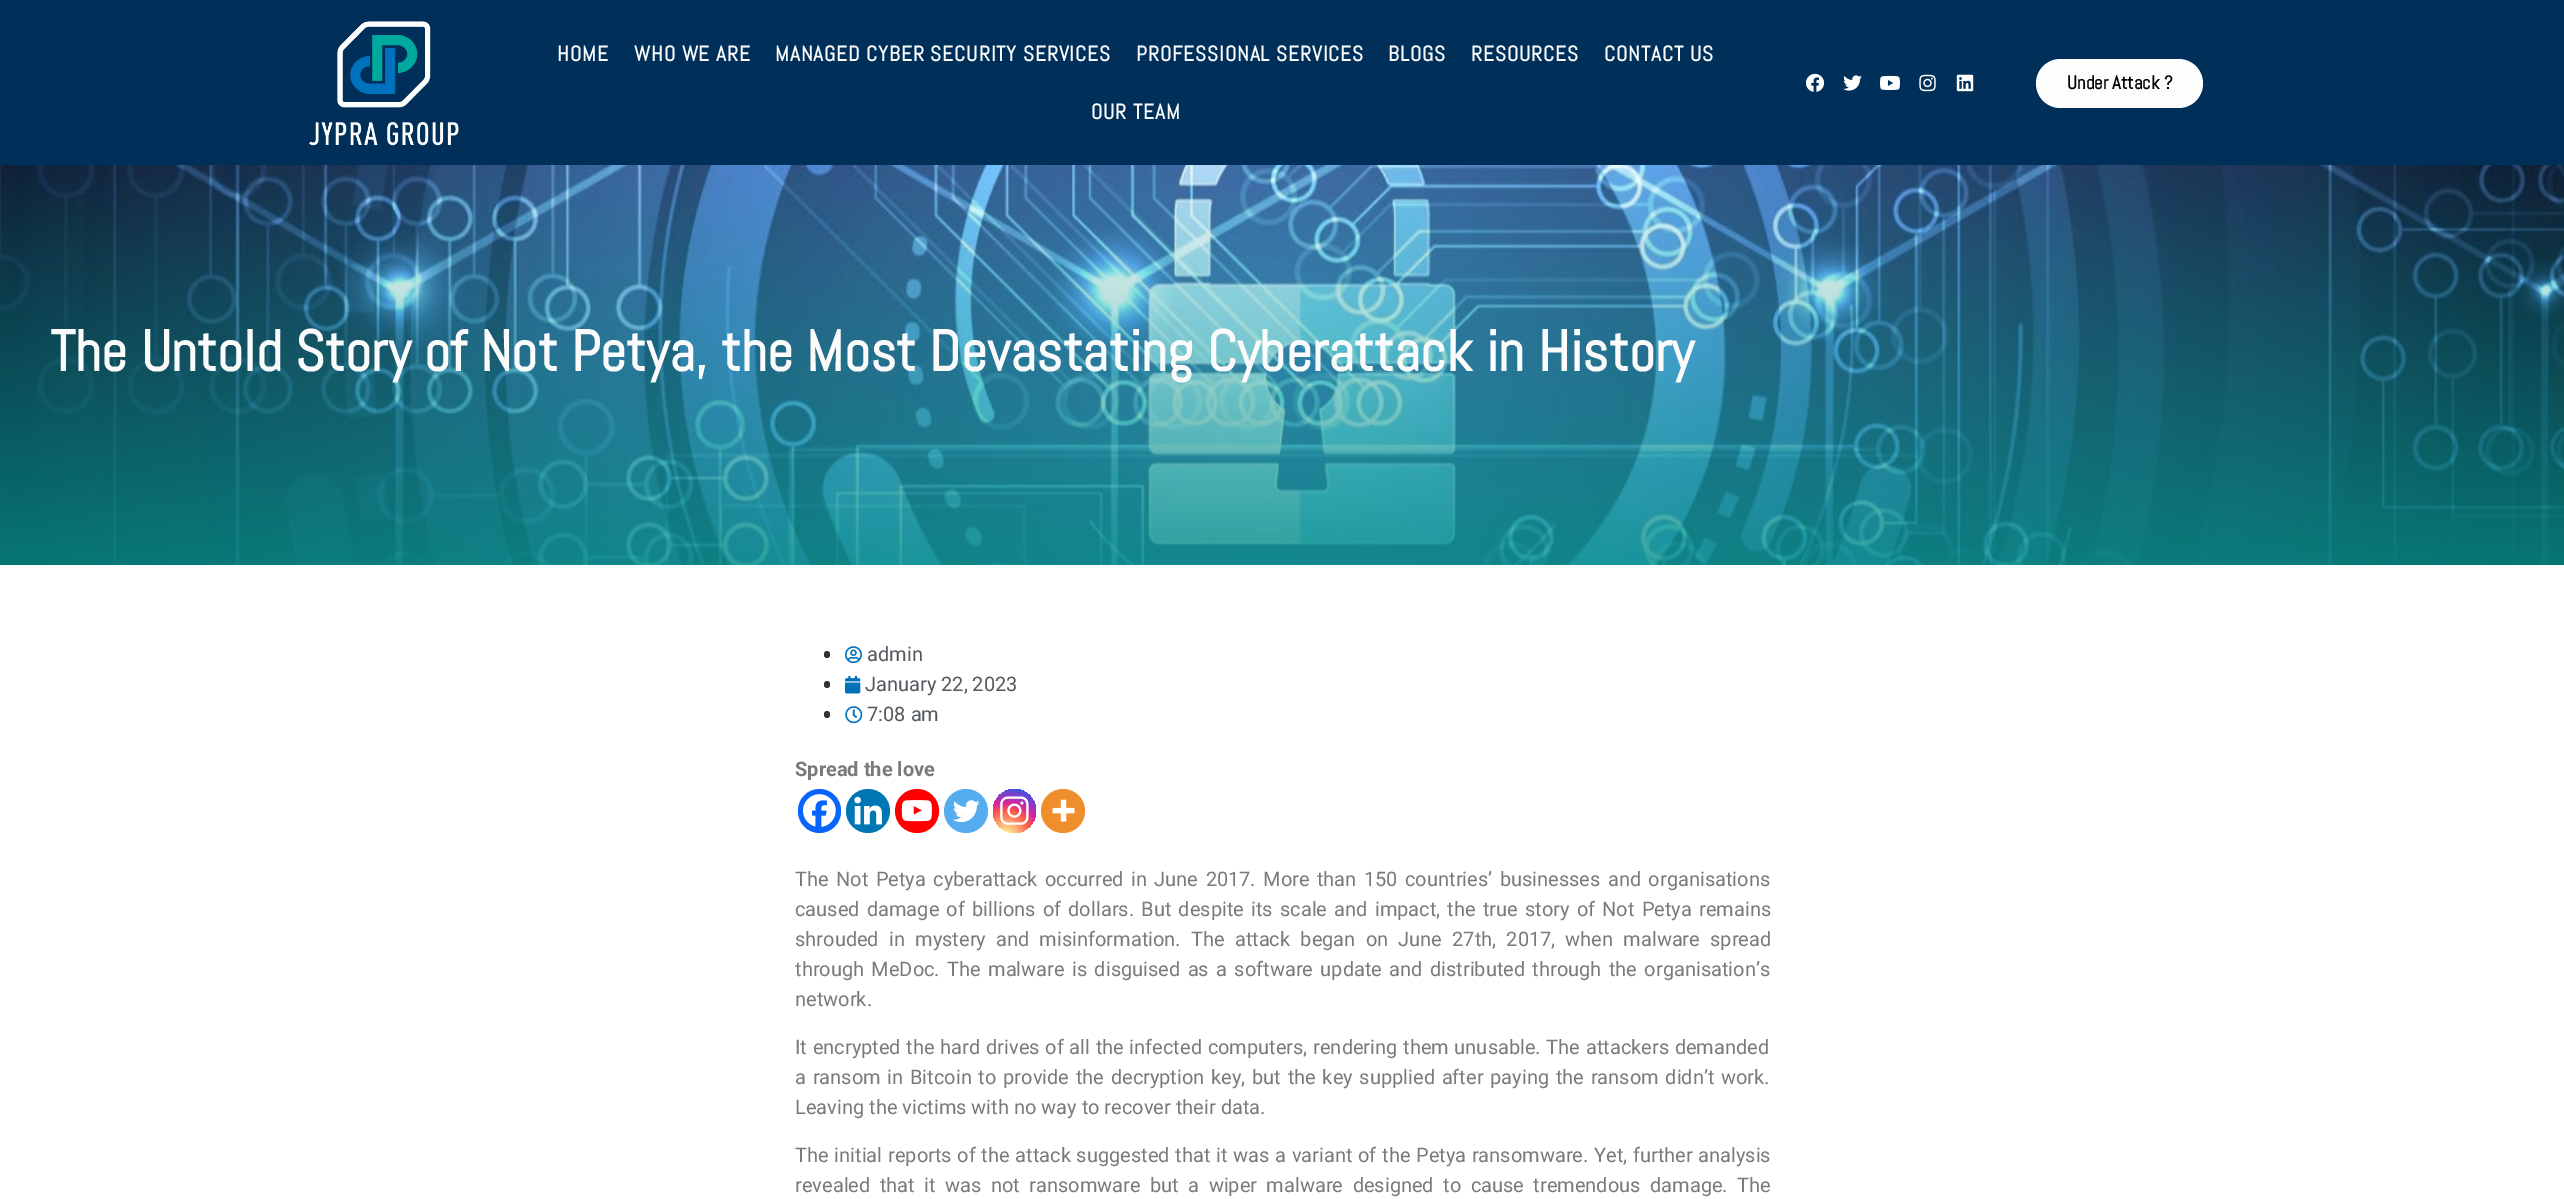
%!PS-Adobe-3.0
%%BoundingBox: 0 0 2564 1199
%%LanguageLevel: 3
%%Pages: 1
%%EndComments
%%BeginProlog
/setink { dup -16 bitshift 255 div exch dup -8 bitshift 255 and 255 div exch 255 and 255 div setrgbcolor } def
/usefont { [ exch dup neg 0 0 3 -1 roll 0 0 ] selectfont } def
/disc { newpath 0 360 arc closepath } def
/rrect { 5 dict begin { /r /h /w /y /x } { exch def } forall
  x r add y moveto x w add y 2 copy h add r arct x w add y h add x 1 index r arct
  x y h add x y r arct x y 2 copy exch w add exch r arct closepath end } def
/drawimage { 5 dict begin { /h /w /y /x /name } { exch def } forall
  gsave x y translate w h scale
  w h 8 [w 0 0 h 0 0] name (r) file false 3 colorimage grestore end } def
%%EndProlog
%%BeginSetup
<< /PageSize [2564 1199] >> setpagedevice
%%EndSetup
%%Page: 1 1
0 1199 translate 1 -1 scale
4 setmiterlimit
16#FFFFFF setink
0 0 2564 1199 rectfill
16#00305A setink
0 0 2564 165 rectfill
(img1.raw) 309 21 150 125 drawimage
/Abel-Bold 21.25 usefont
16#FBFBFB setink
557 61 moveto 0.9 0 (HOME) ashow
634 61 moveto 0.9 0 (WHO WE ARE) ashow
775 61 moveto 0.9 0 (MANAGED CYBER SECURITY SERVICES) ashow
1136 61 moveto 0.9 0 (PROFESSIONAL SERVICES) ashow
1388 61 moveto 0.9 0 (BLOGS) ashow
1471 61 moveto 0.9 0 (RESOURCES) ashow
1604 61 moveto 0.9 0 (CONTACT US) ashow
1091 119 moveto 0.9 0 (OUR TEAM) ashow
(img2.raw) 1805 73 20 19 drawimage
(img3.raw) 1843 75 19 16 drawimage
(img4.raw) 1880 75 20 15 drawimage
(img5.raw) 1919 74 17 18 drawimage
(img6.raw) 1956 74 18 18 drawimage
16#FDFDFD setink
2036 59 167 49 24.5 rrect fill
/Abel-Bold 18.75 usefont
16#000000 setink
2067 89 moveto (Under Attack ?) show
(img7.raw) 0 165 2564 400 drawimage
/Abel-Bold 57.5 usefont
16#FBFBFB setink
50 371 moveto (The Untold Story of Not Petya, the Most Devastating Cyberattack in History) show
16#333333 setink
824 651 6 7 3 rrect fill
(img8.raw) 845 646 17 18 drawimage
/Roboto-Regular 20 usefont
16#54595F setink
867 661 moveto (admin) show
16#333333 setink
824 681 6 7 3 rrect fill
(img9.raw) 845 675 16 19 drawimage
16#54595F setink
865 691 moveto (January 22, 2023) show
16#333333 setink
824 711 6 7 3 rrect fill
(img10.raw) 845 706 18 18 drawimage
16#54595F setink
867 721 moveto (7:08 am) show
/Roboto-Bold 20 usefont
16#7A7A7A setink
795 776 moveto (Spread the love) show
16#0765FE setink
798 789 43 44 21.5 rrect fill
(img11.raw) 803 794 33 33 drawimage
16#0077B5 setink
868 811 22 disc fill
(img12.raw) 854 796 28 29 drawimage
16#FF0000 setink
917 811 22 disc fill
(img13.raw) 901 800 31 22 drawimage
16#55ACEE setink
966 811 22 disc fill
(img14.raw) 953 800 27 23 drawimage
gsave 993 789 43 44 21.5 rrect clip newpath 1006 836 translate 56 56 scale
<< /ShadingType 3 /ColorSpace /DeviceRGB /Coords [0 0 0 0 0 1] /Extend [true true] /Function << /FunctionType 3 /Domain [0 1] /Functions [<< /FunctionType 2 /Domain [0 1] /C0 [0.992 0.957 0.592] /C1 [0.992 0.957 0.592] /N 1 >> << /FunctionType 2 /Domain [0 1] /C0 [0.992 0.957 0.592] /C1 [0.992 0.349 0.286] /N 1 >> << /FunctionType 2 /Domain [0 1] /C0 [0.992 0.349 0.286] /C1 [0.839 0.141 0.624] /N 1 >> << /FunctionType 2 /Domain [0 1] /C0 [0.839 0.141 0.624] /C1 [0.157 0.353 0.922] /N 1 >> << /FunctionType 2 /Domain [0 1] /C0 [0.157 0.353 0.922] /C1 [0.157 0.353 0.922] /N 1 >>] /Bounds [0.05 0.45 0.6 0.9] /Encode [0 1 0 1 0 1 0 1 0 1] >> >> shfill grestore
(img15.raw) 1000 796 29 29 drawimage
16#EE8E2D setink
1063 811 22 disc fill
(img16.raw) 1052 799 23 23 drawimage
/Roboto-Regular 20 usefont
16#7A7A7A setink
795 886 moveto 2.5 0 32 (The Not Petya cyberattack occurred in June 2017. More than 150 countries’ businesses and organisations) widthshow
795 916 moveto 2.25 0 32 (caused damage of billions of dollars. But despite its scale and impact, the true story of Not Petya remains) widthshow
795 946 moveto 5.25 0 32 (shrouded in mystery and misinformation. The attack began on June 27th, 2017, when malware spread) widthshow
795 976 moveto 2.4 0 32 (through MeDoc. The malware is disguised as a software update and distributed through the organisation’s) widthshow
795 1006 moveto (network.) show
795 1054 moveto 0.75 0 32 (It encrypted the hard drives of all the infected computers, rendering them unusable. The attackers demanded) widthshow
795 1084 moveto 1.8 0 32 (a ransom in Bitcoin to provide the decryption key, but the key supplied after paying the ransom didn’t work.) widthshow
795 1114 moveto (Leaving the victims with no way to recover their data.) show
795 1162 moveto 0.75 0 32 (The initial reports of the attack suggested that it was a variant of the Petya ransomware. Yet, further analysis) widthshow
795 1192 moveto 4.5 0 32 (revealed that it was not ransomware but a wiper malware designed to cause tremendous damage. The) widthshow
showpage
%%EOF
